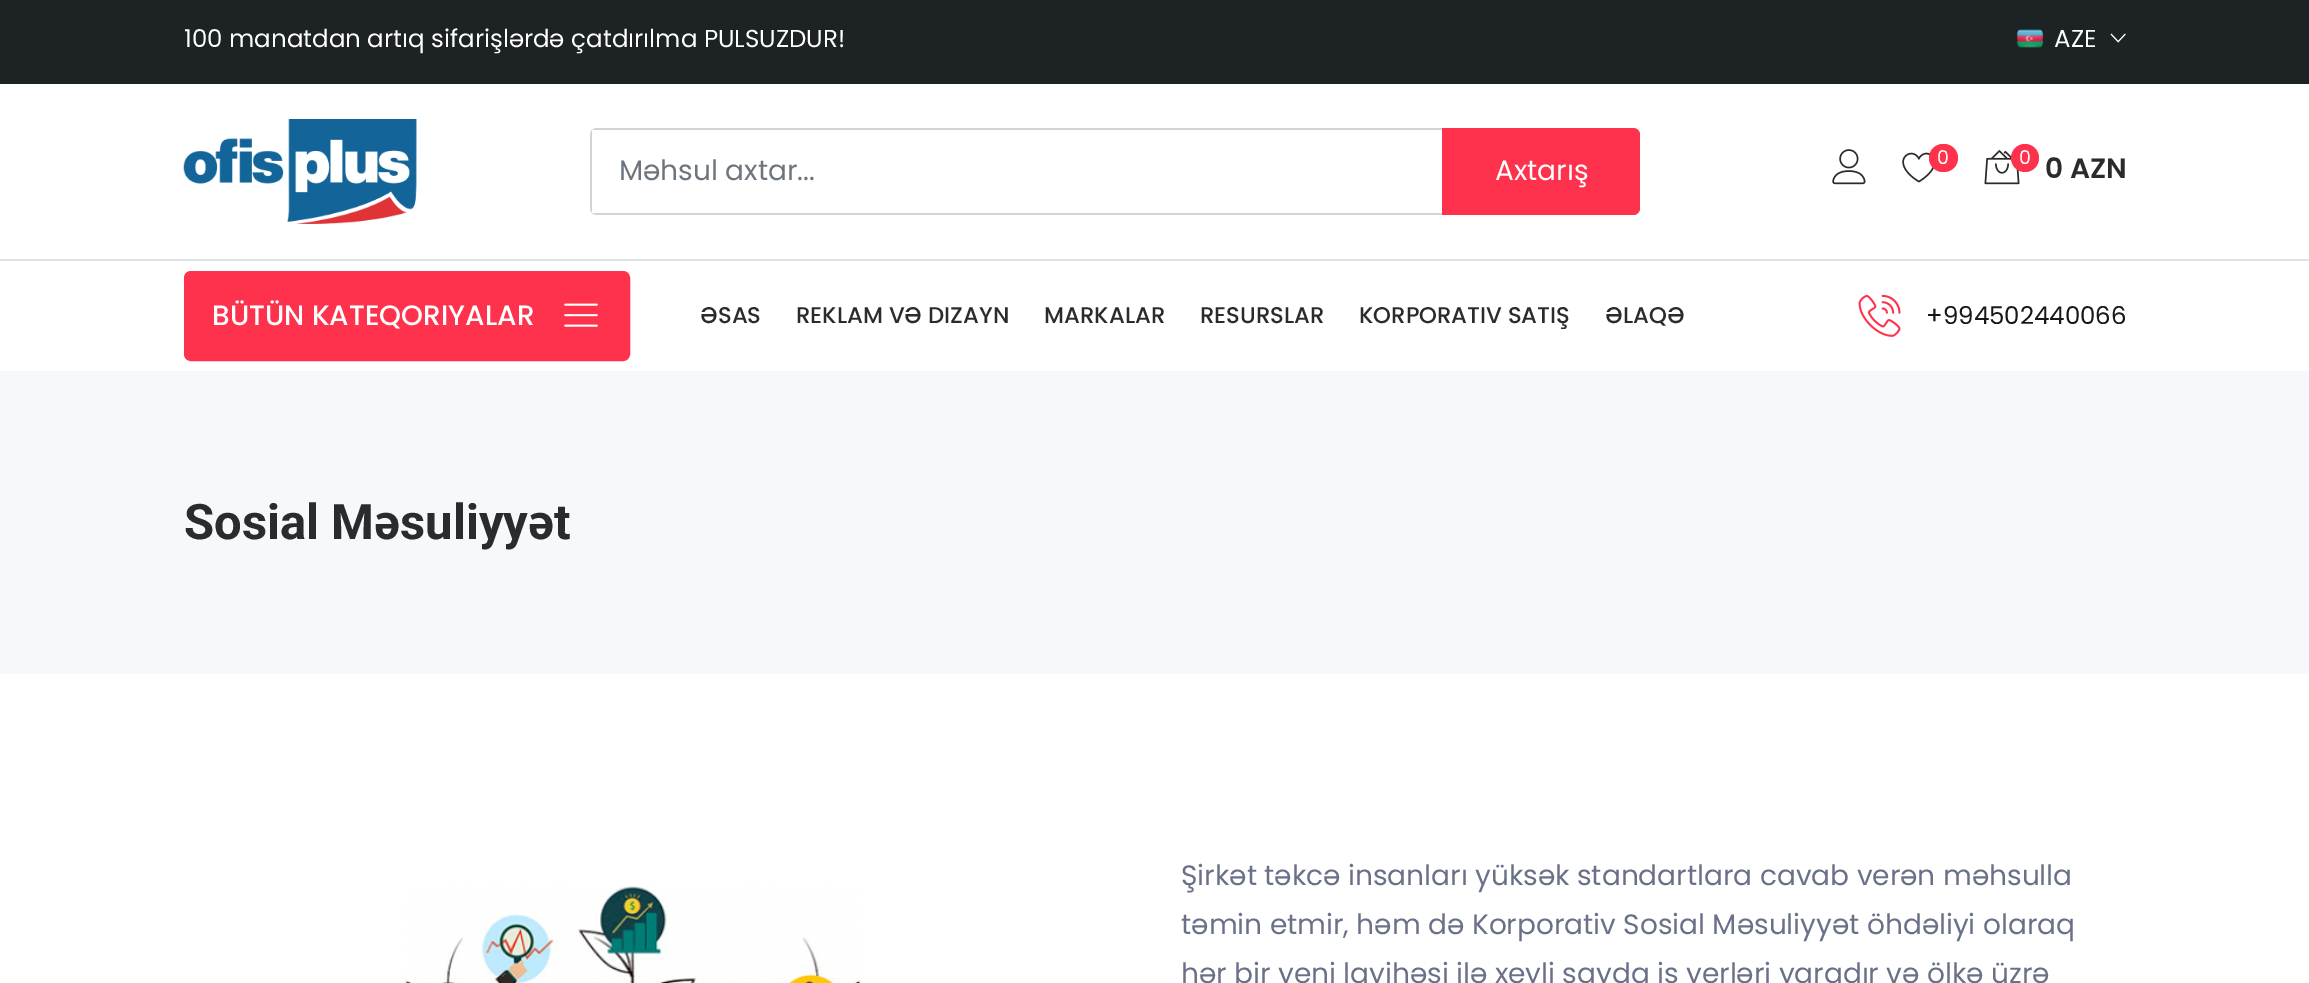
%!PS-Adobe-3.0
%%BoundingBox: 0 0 2309 983
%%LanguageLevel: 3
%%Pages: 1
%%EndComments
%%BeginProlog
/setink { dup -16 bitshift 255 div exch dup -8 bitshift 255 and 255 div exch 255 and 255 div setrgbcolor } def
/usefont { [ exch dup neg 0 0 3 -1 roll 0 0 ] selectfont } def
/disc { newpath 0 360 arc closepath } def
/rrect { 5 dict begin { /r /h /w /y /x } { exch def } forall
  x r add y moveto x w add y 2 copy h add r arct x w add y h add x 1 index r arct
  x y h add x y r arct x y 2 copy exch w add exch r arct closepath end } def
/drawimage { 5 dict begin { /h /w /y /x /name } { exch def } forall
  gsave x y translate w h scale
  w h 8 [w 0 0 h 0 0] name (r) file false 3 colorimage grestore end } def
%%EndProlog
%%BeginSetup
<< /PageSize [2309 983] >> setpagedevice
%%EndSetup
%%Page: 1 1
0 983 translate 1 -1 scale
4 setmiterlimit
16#FFFFFF setink
0 0 2309 983 rectfill
16#1D2224 setink
0 0 2309 84 rectfill
/Poppins-Regular 24.5 usefont
16#FFFFFF setink
184 47 moveto (100 manatdan artıq sifarişlərdə çatdırılma PULSUZDUR!) show
(img1.raw) 2016 29 28 19 drawimage
2054 47 moveto (AZE) show
(img2.raw) 2110 33 16 10 drawimage
(img3.raw) 183 119 234 105 drawimage
16#CED4DA setink
590 135 moveto 590 208 lineto 590 210 591 212 592 213 curveto 592 130 lineto 591 131 590 133 590 135 curveto closepath 597 128 moveto 595 128 593 129 592 130 curveto 1633 130 lineto 1636 130 1638 132 1638 135 curveto 1638 208 lineto 1638 211 1636 213 1633 213 curveto 592 213 lineto 593 214 595 215 597 215 curveto 1633 215 lineto 1637 215 1640 212 1640 208 curveto 1640 135 lineto 1640 131 1637 128 1633 128 curveto closepath eofill
/Poppins-Regular 28 usefont
16#6C757D setink
619 180 moveto (Məhsul axtar...) show
16#FF324D setink
1442 128 moveto 1633 128 lineto 1637 128 1640 131 1640 135 curveto 1640 208 lineto 1640 212 1637 215 1633 215 curveto 1442 215 lineto closepath fill
16#FFFFFF setink
1495 180 moveto (Axtarış) show
(img4.raw) 1832 149 34 36 drawimage
(img5.raw) 1902 152 32 31 drawimage
16#FF324D setink
1929 144 29 28 14 rrect fill
/Poppins-Regular 19 usefont
16#FFFFFF setink
1937 164 moveto (0) show
(img6.raw) 1984 150 36 35 drawimage
16#FF324D setink
2025 158 14 disc fill
16#FFFFFF setink
2019 164 moveto (0) show
/Poppins-SemiBold 28 usefont
16#292B2C setink
2045 178 moveto (0 AZN) show
16#DEE2E6 setink
0 259 2309 2 rectfill
16#FF324D setink
185 272 444 88 6 rrect gsave fill grestore
2 setlinewidth
stroke
/Poppins-Medium 28 usefont
16#FFFFFF setink
212 325 moveto (BÜTÜN KATEQORIYALAR) show
(img7.raw) 564 303 34 24 drawimage
/Poppins-Medium 22.75 usefont
16#292B2C setink
[
    [(ƏSAS) 700 323]
    [(REKLAM VƏ DIZAYN) 796 323]
    [(MARKALAR) 1044 323]
    [(RESURSLAR) 1200 323]
    [(KORPORATIV SATIŞ) 1359 323]
    [(ƏLAQƏ) 1605 323]
] { aload pop moveto show } forall
(img8.raw) 1858 294 43 43 drawimage
/Poppins-Regular 24.5 usefont
16#16181B setink
1926 324 moveto (+994502440066) show
16#F7F8FB setink
0 371 2309 303 rectfill
/Roboto-Bold 49 usefont
16#292B2C setink
184 539 moveto (Sosial Məsuliyyət) show
(img9.raw) 405 886 456 97 drawimage
/Poppins-Regular 28 usefont
16#687188 setink
[
    [(Şirkət təkcə insanları yüksək standartlara cavab verən məhsulla) 1181 885]
    [(təmin etmir, həm də Korporativ Sosial Məsuliyyət öhdəliyi olaraq) 1181 934]
    [(hər bir yeni layihəsi ilə xeyli sayda iş yerləri yaradır və ölkə üzrə) 1181 983]
] { aload pop moveto show } forall
showpage
%%EOF
